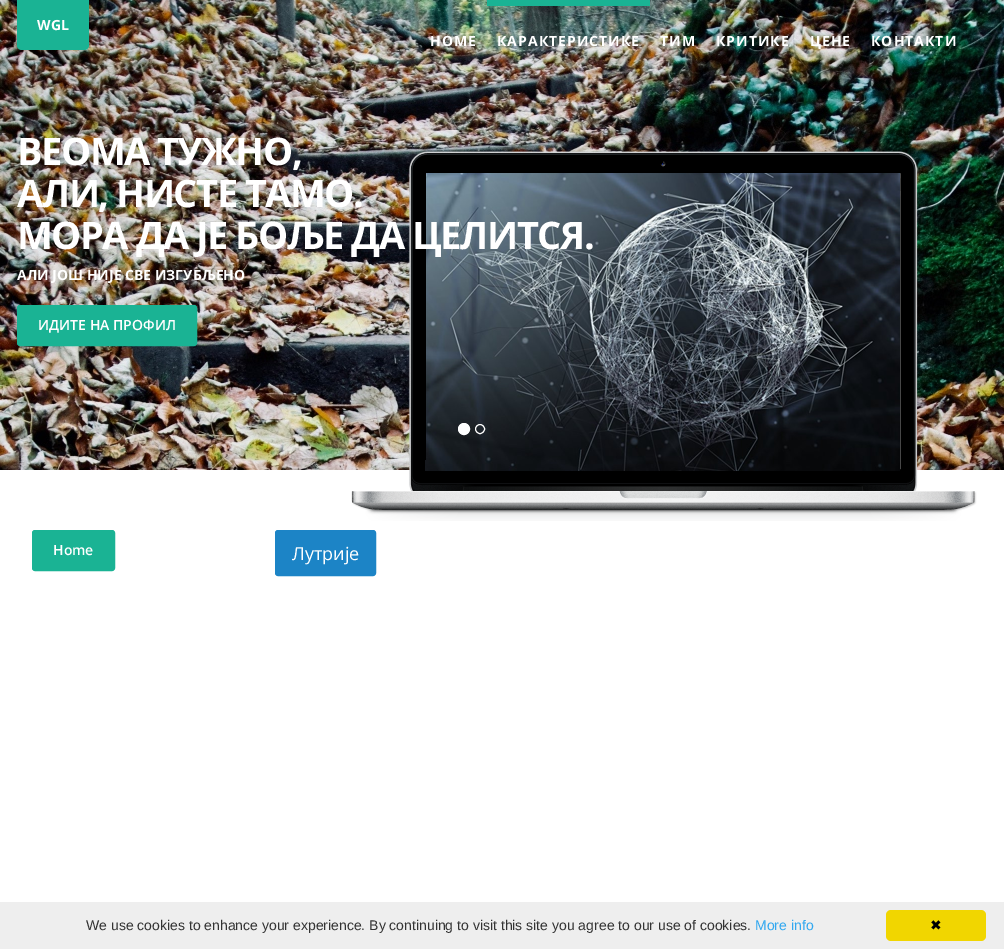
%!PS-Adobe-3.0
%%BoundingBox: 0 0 1004 949
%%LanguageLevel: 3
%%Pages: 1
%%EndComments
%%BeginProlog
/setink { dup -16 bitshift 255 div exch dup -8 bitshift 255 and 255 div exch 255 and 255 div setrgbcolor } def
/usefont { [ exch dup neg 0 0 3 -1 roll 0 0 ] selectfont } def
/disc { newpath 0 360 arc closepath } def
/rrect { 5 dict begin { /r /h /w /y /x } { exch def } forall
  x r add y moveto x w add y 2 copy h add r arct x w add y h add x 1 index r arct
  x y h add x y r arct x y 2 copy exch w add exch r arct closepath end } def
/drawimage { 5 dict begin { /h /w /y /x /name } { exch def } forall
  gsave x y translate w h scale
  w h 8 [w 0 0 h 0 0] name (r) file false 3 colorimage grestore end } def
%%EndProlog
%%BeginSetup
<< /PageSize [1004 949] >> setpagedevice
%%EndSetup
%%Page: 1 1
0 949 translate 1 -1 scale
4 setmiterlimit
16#FFFFFF setink
0 0 1004 949 rectfill
(img1.raw) 0 0 1004 470 drawimage
16#1AB394 setink
17 0 moveto 89 0 lineto 89 45 lineto 89 48 87 50 84 50 curveto 22 50 lineto 19 50 17 48 17 45 curveto closepath fill
/OpenSans-Bold 14 usefont
16#FFFFFF setink
37 30 moveto (WGL) show
430 46 moveto 1 0 (HOME) ashow
16#1AB394 setink
487 0 163 6 rectfill
16#FFFFFF setink
497 46 moveto 1 0 (КАРАКТЕРИСТИКЕ) ashow
660 46 moveto 1 0 (ТИМ) ashow
716 46 moveto 1 0 (КРИТИКЕ) ashow
810 46 moveto 1 0 (ЦЕНЕ) ashow
871 46 moveto 1 0 (КОНТАКТИ) ashow
/OpenSans-Bold 38 usefont
17 165 moveto -1.5 0 (ВЕОМА ТУЖНО,) ashow
(img2.raw) 351 151 626 370 drawimage
17 207 moveto -1.5 0 (АЛИ, НИСТЕ ТАМО.) ashow
17 249 moveto -1.5 0 (МОРА ДА ЈЕ БОЉЕ ДА ЦЕЛИТСЯ.) ashow
/OpenSans-Bold 14 usefont
17 280 moveto (АЛИ ЈОШ НИЈЕ СВЕ ИЗГУБЉЕНО) show
16#1AB394 setink
17.5 305.5 179 40 2.5 rrect gsave fill grestore
stroke
/OpenSans-SemiBold 14 usefont
16#FFFFFF setink
38 330 moveto (ИДИТЕ НА ПРОФИЛ) show
464 429 5.5 disc gsave fill grestore
stroke
480 429 4.5 disc stroke
16#1AB394 setink
32.5 530.5 82 40 2.5 rrect gsave fill grestore
stroke
16#FFFFFF setink
53 555 moveto (Home) show
16#1C84C6 setink
275.5 530.5 100 45 2.5 rrect gsave fill grestore
stroke
/OpenSans-Regular 18 usefont
16#FFFFFF setink
292 560 moveto (Лутрије) show
16#EEEEEE setink
0 902 1004 47 rectfill
/LiberationSans-Regular 14 usefont
16#333333 setink
86 930 moveto (We use cookies to enhance your experience. By continuing to visit this site you agree to our use of cookies.) show
16#31A8F0 setink
755 930 moveto (More info) show
16#F1D600 setink
886 910 100 31 5 rrect fill
/DejaVuSans-Regular 14 usefont
16#000000 setink
930 930 moveto (✖) show
showpage
%%EOF
